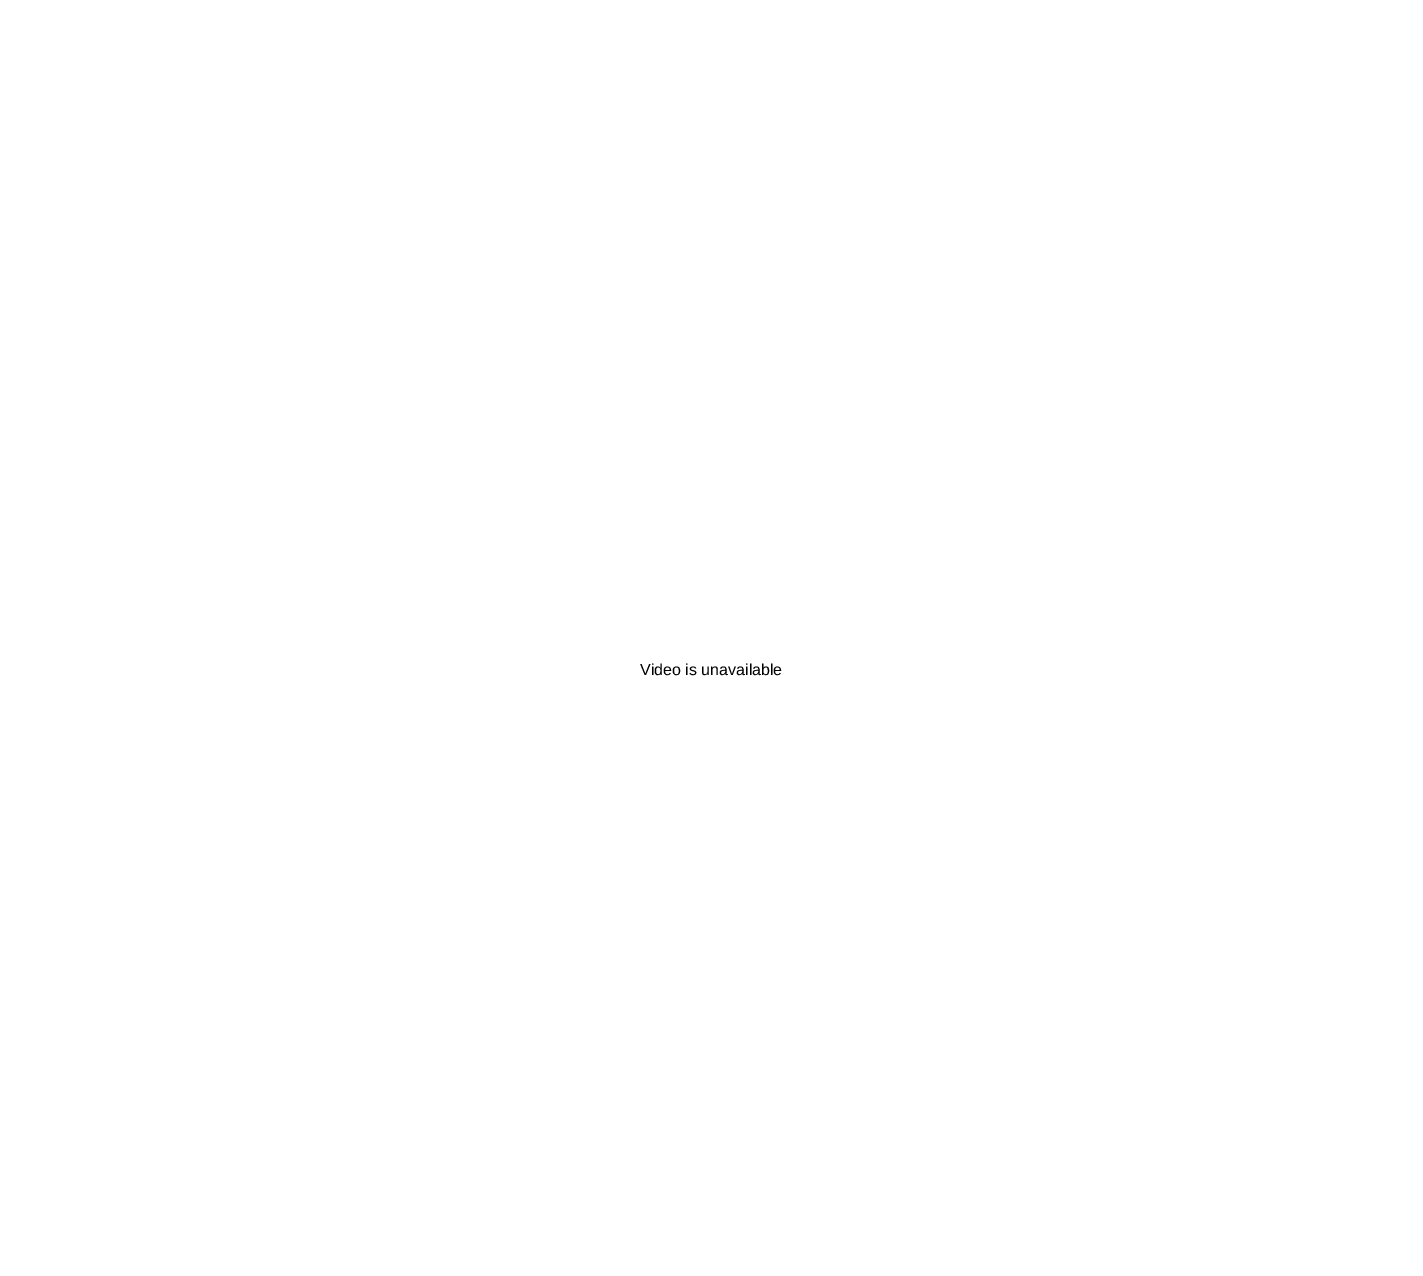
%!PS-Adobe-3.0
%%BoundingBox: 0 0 1423 1276
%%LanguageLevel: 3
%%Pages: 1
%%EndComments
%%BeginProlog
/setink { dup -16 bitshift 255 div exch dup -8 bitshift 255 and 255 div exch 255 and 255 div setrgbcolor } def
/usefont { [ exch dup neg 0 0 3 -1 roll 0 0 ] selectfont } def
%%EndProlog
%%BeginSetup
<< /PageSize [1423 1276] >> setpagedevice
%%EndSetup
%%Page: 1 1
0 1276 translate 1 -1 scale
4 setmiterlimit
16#FFFFFF setink
0 0 1423 1276 rectfill
/LiberationSans-Regular 16 usefont
16#000000 setink
640 675 moveto (Video is unavailable) show
showpage
%%EOF
